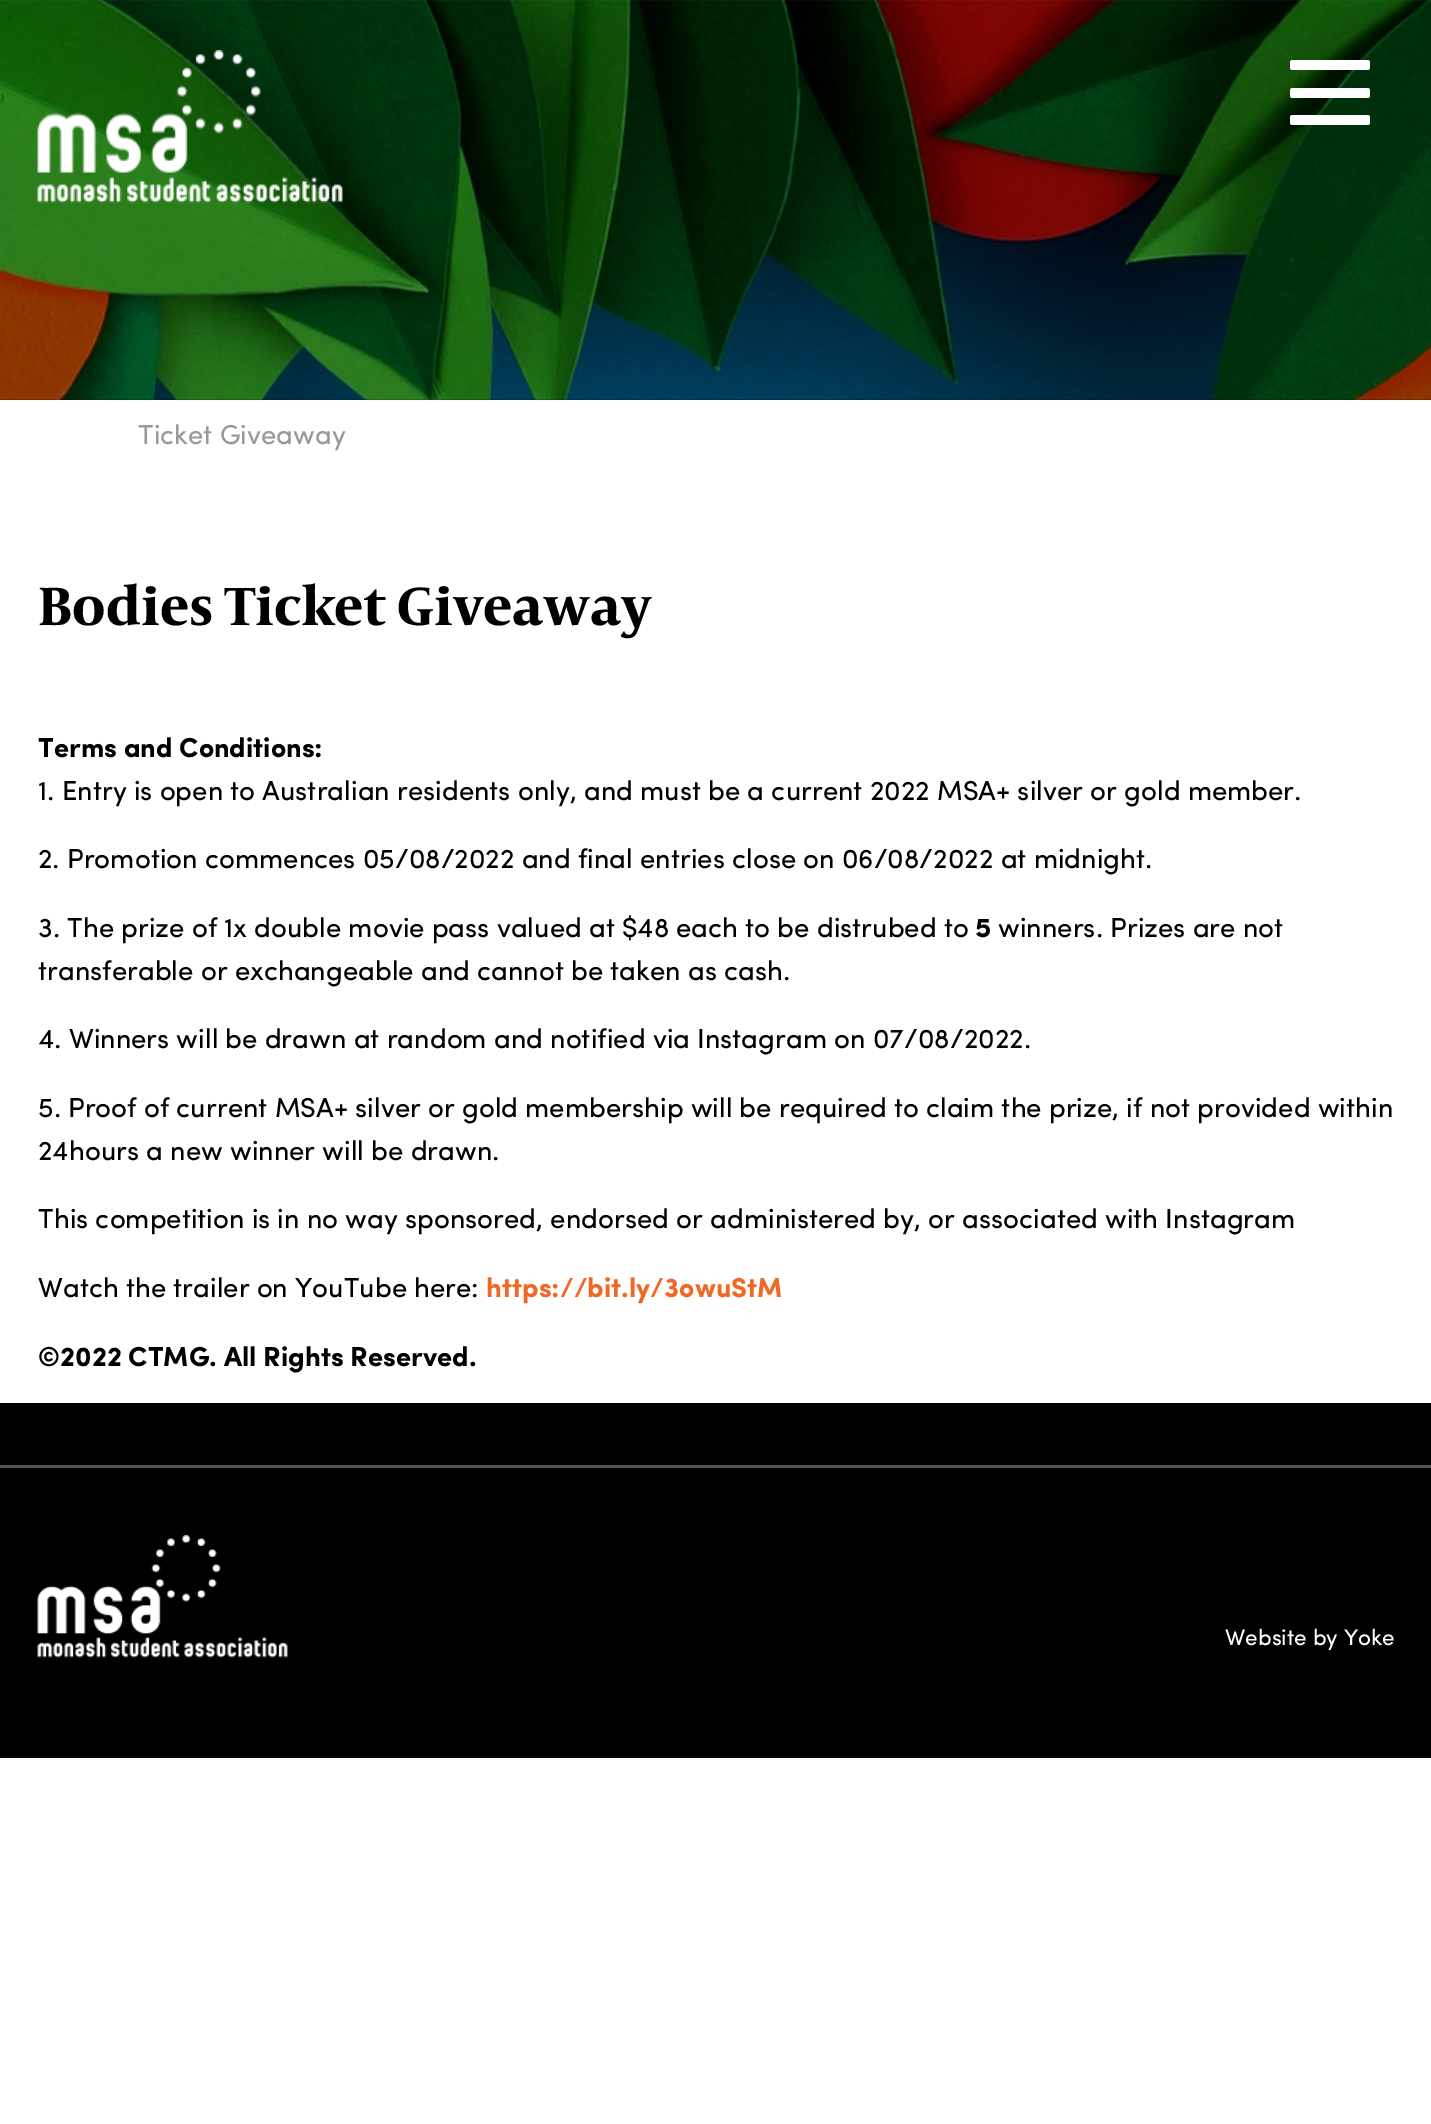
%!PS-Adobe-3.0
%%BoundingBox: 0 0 1431 2124
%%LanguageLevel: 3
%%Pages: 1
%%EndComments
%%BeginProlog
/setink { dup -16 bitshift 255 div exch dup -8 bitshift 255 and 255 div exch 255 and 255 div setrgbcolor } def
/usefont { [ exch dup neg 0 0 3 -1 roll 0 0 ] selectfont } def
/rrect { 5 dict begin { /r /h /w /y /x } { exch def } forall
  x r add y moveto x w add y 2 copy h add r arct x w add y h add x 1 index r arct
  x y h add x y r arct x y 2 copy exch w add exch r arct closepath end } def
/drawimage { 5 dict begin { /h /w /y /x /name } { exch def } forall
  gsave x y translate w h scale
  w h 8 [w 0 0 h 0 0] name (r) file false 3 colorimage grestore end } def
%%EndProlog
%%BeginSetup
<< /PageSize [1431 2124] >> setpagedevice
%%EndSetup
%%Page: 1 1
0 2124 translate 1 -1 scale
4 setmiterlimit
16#FFFFFF setink
0 0 1431 2124 rectfill
(img1.raw) 0 0 1431 400 drawimage
(img2.raw) 37 50 306 153 drawimage
1290 60 80 10 2.5 rrect fill
1290 88 80 10 2.5 rrect fill
1290 115 80 10 2.5 rrect fill
/Sofia-Regular 27.5 usefont
16#999999 setink
138 444 moveto (Ticket Giveaway) show
/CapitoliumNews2-Bold 55 usefont
16#000000 setink
38 625 moveto (Bodies Ticket Giveaway) show
/Sofia-Bold 27.5 usefont
38 757 moveto (Terms and Conditions:) show
/Sofia-Regular 27.5 usefont
[
    [(1. Entry is open to Australian residents only, and must be a current 2022 MSA+ silver or gold member.) 38 800]
    [(2. Promotion commences 05/08/2022 and final entries close on 06/08/2022 at midnight.) 38 868]
    [(3. The prize of 1x double movie pass valued at $48 each to be distrubed to) 38 937]
] { aload pop moveto show } forall
/Sofia-Bold 27.5 usefont
975 937 moveto (5) show
/Sofia-Regular 27.5 usefont
[
    [(winners. Prizes are not) 998 937]
    [(transferable or exchangeable and cannot be taken as cash.) 38 980]
    [(4. Winners will be drawn at random and notified via Instagram on 07/08/2022.) 38 1048]
    [(5. Proof of current MSA+ silver or gold membership will be required to claim the prize, if not provided within) 38 1117]
    [(24hours a new winner will be drawn.) 38 1160]
    [(This competition is in no way sponsored, endorsed or administered by, or associated with Instagram) 38 1228]
    [(Watch the trailer on YouTube here:) 38 1297]
] { aload pop moveto show } forall
/Sofia-Bold 27.5 usefont
16#F16724 setink
486 1297 moveto (https://bit.ly/3owuStM) show
16#000000 setink
38 1366 moveto (©2022 CTMG. All Rights Reserved.) show
0 1403 1431 355 rectfill
16#565656 setink
0 1465 1431 3 rectfill
(img3.raw) 37 1535 251 123 drawimage
/Sofia-Regular 22.5 usefont
16#FFFFFF setink
1225 1645 moveto (Website by Yoke) show
showpage
%%EOF
